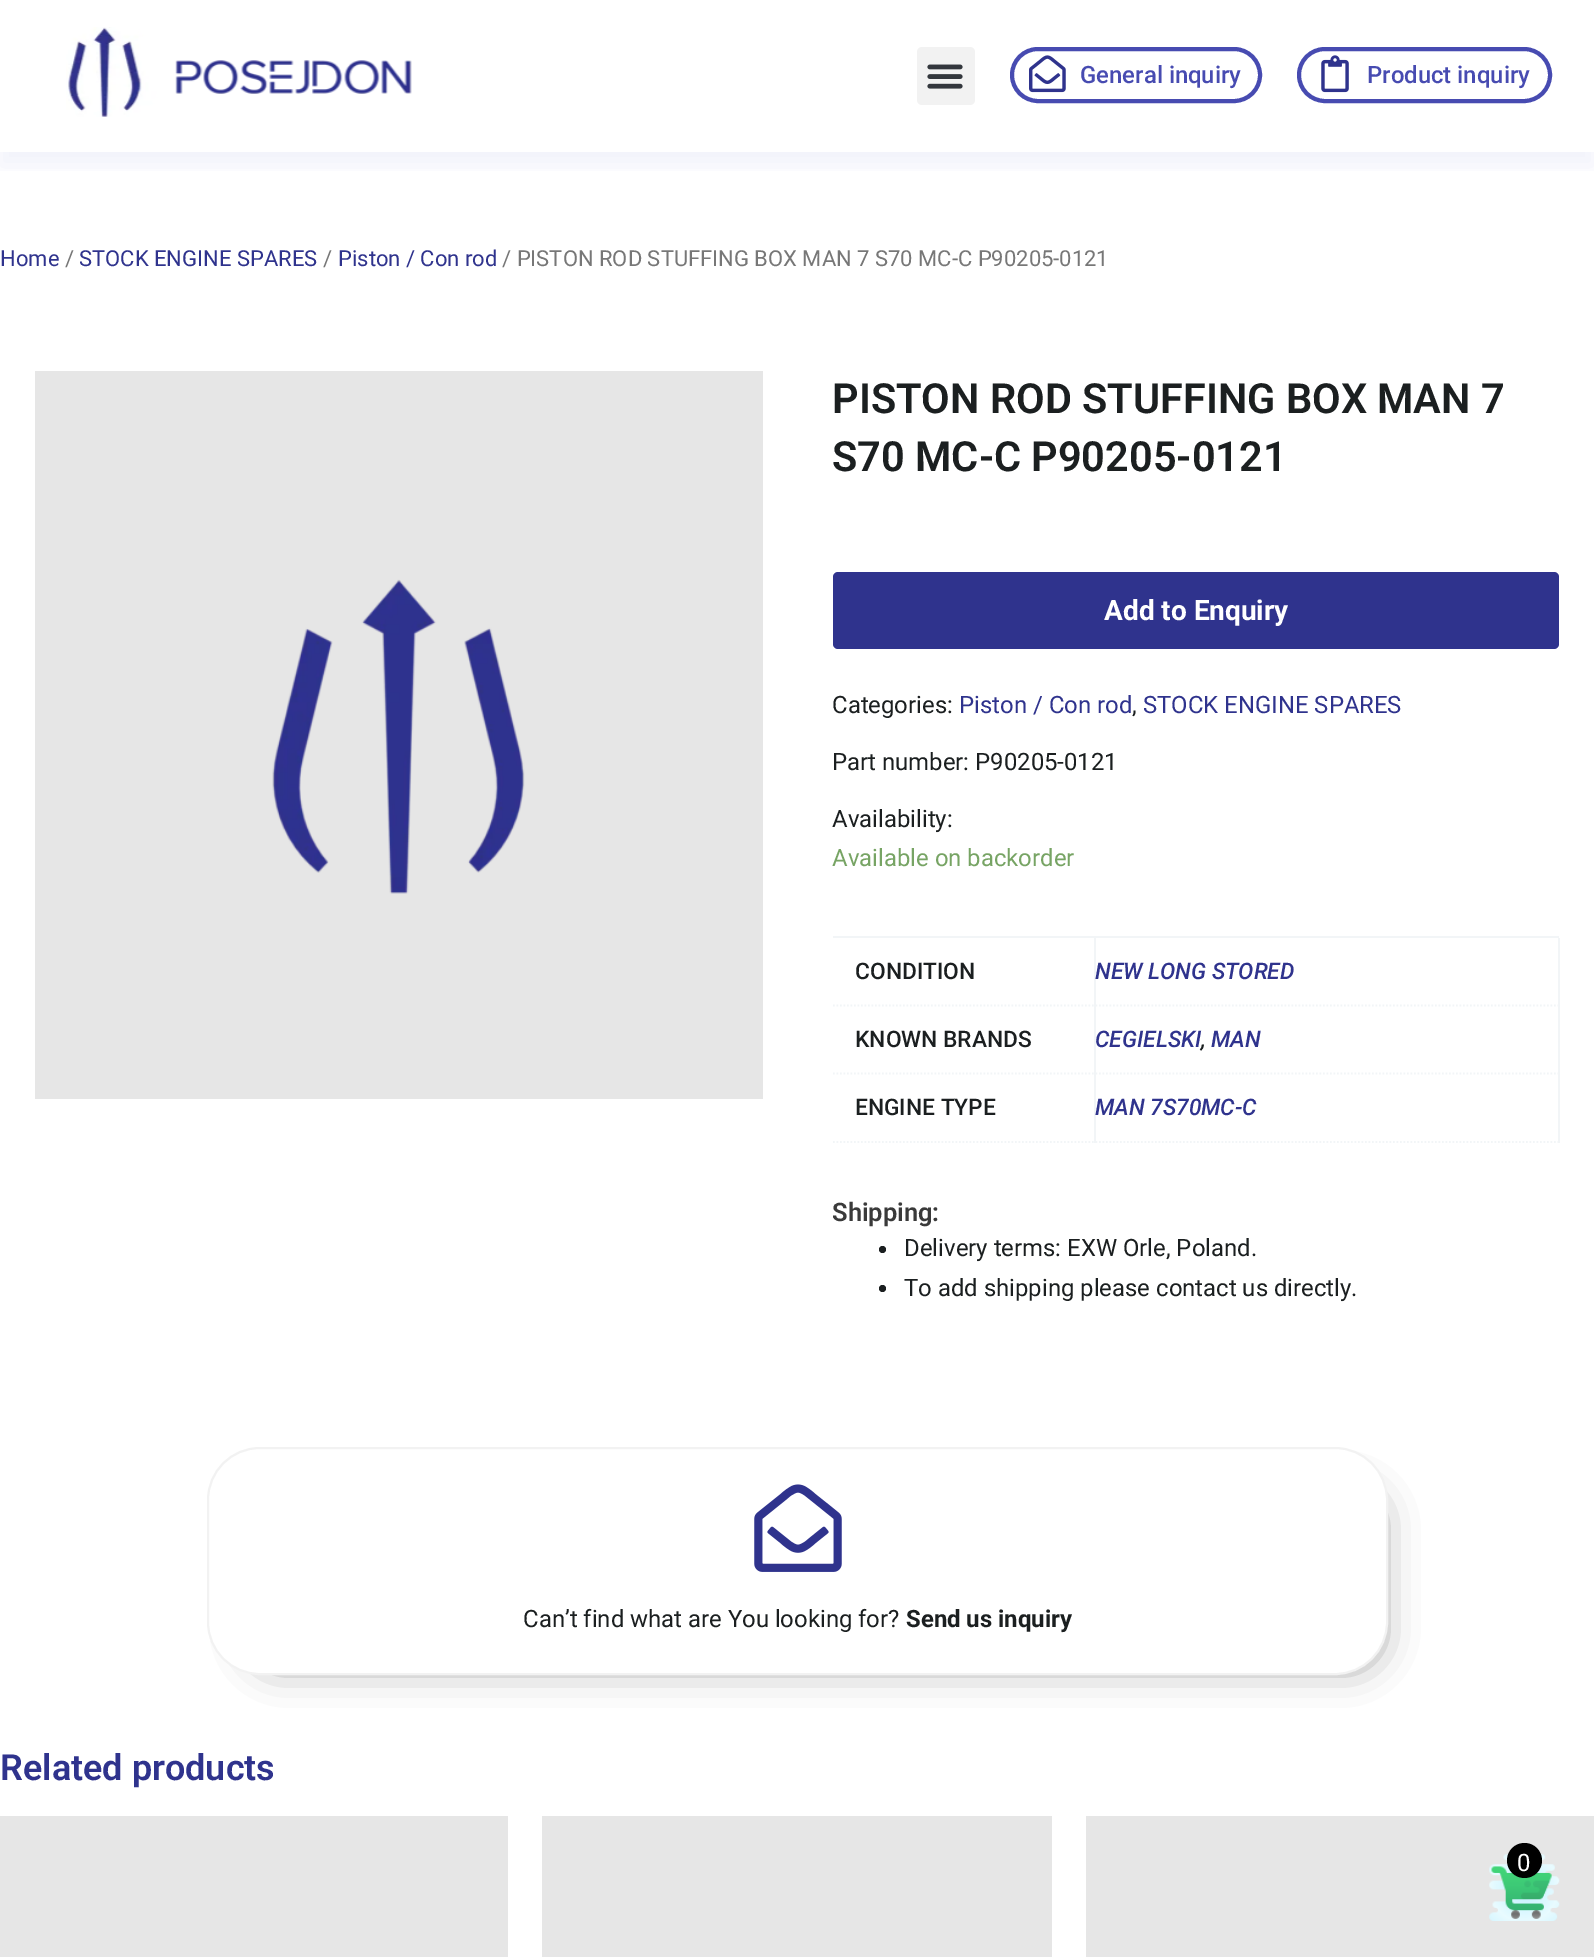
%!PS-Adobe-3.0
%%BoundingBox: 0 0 1594 1957
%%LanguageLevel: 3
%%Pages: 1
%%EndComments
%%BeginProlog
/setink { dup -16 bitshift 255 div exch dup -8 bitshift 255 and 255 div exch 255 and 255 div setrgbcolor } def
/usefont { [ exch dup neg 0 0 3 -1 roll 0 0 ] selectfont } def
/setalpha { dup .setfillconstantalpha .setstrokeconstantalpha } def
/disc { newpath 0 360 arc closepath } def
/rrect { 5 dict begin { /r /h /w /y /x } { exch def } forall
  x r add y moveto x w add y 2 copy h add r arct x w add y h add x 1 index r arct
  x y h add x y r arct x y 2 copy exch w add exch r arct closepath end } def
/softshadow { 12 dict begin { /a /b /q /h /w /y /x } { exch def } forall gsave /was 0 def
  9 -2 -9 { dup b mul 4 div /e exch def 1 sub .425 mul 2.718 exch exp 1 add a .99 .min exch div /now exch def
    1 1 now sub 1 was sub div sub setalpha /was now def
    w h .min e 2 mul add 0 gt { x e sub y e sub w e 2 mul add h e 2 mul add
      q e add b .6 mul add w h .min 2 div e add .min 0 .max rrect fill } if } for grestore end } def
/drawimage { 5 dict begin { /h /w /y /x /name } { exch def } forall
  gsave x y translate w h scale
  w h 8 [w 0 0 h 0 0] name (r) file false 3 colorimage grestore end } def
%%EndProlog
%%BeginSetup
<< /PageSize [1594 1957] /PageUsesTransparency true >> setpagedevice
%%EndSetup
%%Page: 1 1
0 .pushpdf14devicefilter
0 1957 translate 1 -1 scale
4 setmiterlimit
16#FFFFFF setink
0 0 1594 1957 rectfill
gsave
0 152 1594 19 rectclip
16#1F2687 setink
0 14 1594 152 0 12 0.06 softshadow
grestore
(img1.raw) 66 27 346 90 drawimage
16#F2F2F2 setink
917 47 58 58 5 rrect fill
(img2.raw) 927 64 36 25 drawimage
16#474BB1 setink
4 setlinewidth
1012 49 248 52 26 rrect stroke
(img3.raw) 1029 55 37 38 drawimage
/Roboto-Medium 23.9 usefont
1080 83 moveto (General inquiry) show
1299 49 251 52 26 rrect stroke
(img4.raw) 1321 55 28 38 drawimage
1367 83 moveto (Product inquiry) show
/Roboto-Regular 22 usefont
16#2F338D setink
0 266 moveto (Home) show
16#777777 setink
65 266 moveto (/) show
16#2F338D setink
79 266 moveto (STOCK ENGINE SPARES) show
16#777777 setink
323 266 moveto (/) show
16#2F338D setink
338 266 moveto (Piston / Con rod) show
16#777777 setink
502 266 moveto (/ PISTON ROD STUFFING BOX MAN 7 S70 MC-C P90205-0121) show
(img5.raw) 35 371 728 728 drawimage
/Roboto-SemiBold 41.5 usefont
16#1B1F20 setink
832 413 moveto (PISTON ROD STUFFING BOX MAN 7) show
832 471 moveto (S70 MC-C P90205-0121) show
16#2F338D setink
833 572 726 77 5 rrect fill
/Roboto-Bold 28 usefont
16#FFFFFF setink
1104 620 moveto (Add to Enquiry) show
/Roboto-Regular 23.9 usefont
16#1B1F20 setink
832 713 moveto (Categories:) show
16#2F338D setink
959 713 moveto (Piston / Con rod) show
16#1B1F20 setink
1132 713 moveto (,) show
16#2F338D setink
1143 713 moveto (STOCK ENGINE SPARES) show
16#1B1F20 setink
832 770 moveto (Part number: P90205-0121) show
832 827 moveto (Availability:) show
16#77A464 setink
832 866 moveto (Available on backorder) show
16#F2F5F7 setink
833 936 726 2 rectfill
1094 938 2 68 rectfill
1.8 setlinewidth
[1.75 1.75] 0 setdash
833 1005.5 moveto 1095.5 1005.5 lineto stroke
/Roboto-Medium 22.75 usefont
16#1B1F20 setink
855 979 moveto (CONDITION) show
16#F2F5F7 setink
1558 938 2 68 rectfill
1095.5 1005.5 moveto 1559 1005.5 lineto stroke
/Roboto-MediumItalic 22.75 usefont
16#2F338D setink
1095 979 moveto (NEW LONG STORED) show
16#F2F5F7 setink
1094 1006 2 137 rectfill
833 1073.5 moveto 1095.5 1073.5 lineto stroke
/Roboto-Medium 22.75 usefont
16#1B1F20 setink
855 1047 moveto (KNOWN BRANDS) show
16#F2F5F7 setink
1558 1006 2 137 rectfill
1095.5 1073.5 moveto 1559 1073.5 lineto stroke
/Roboto-MediumItalic 22.75 usefont
16#2F338D setink
1095 1047 moveto (CEGIELSKI) show
16#1B1F20 setink
1201 1047 moveto (,) show
16#2F338D setink
1211 1047 moveto (MAN) show
16#F2F5F7 setink
833 1142 moveto 1095.5 1142 lineto stroke
/Roboto-Medium 22.75 usefont
16#1B1F20 setink
855 1115 moveto (ENGINE TYPE) show
16#F2F5F7 setink
1095.5 1142 moveto 1559 1142 lineto stroke
/Roboto-MediumItalic 22.75 usefont
16#2F338D setink
1095 1115 moveto (MAN 7S70MC-C) show
/Roboto-SemiBold 25.5 usefont
16#3A3A3A setink
832 1221 moveto (Shipping:) show
16#1B1F20 setink
882.5 1249.5 3.5 disc fill
/Roboto-Regular 23.9 usefont
904 1256 moveto (Delivery terms: EXW Orle, Poland.) show
882.5 1288.5 3.5 disc fill
904 1296 moveto (To add shipping please contact us directly.) show
gsave
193 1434 moveto 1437 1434 lineto 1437 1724 lineto 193 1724 lineto closepath 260 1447 moveto 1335 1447 lineto 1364.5 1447 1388 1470.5 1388 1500 curveto 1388 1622 lineto 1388 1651.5 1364.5 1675 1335 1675 curveto 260 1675 lineto 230.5 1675 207 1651.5 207 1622 curveto 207 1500 lineto 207 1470.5 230.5 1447 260 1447 curveto closepath eoclip newpath
16#000000 setink
254 1495 1122 168 23 20 0.5 softshadow
grestore
16#F2F2F2 setink
2 setlinewidth
[] 0 setdash
208 1448 1179 226 52 rrect stroke
(img6.raw) 754 1484 88 88 drawimage
16#1B1F20 setink
523 1627 moveto (Can’t find what are You looking for?) show
/Roboto-Bold 23.9 usefont
906 1627 moveto (Send us inquiry) show
/Roboto-SemiBold 36 usefont
16#2F338D setink
0 1780 moveto (Related products) show
[
    [0 1816 508 141 16#E6E6E6]
    [542 1816 510 141 16#E6E6E6]
    [1086 1816 508 141 16#E6E6E6]
] { aload pop setink rectfill } forall
(img7.raw) 1489 1854 71 67 drawimage
16#000000 setink
1524.5 1860.5 17.5 disc fill
/Roboto-Regular 24 usefont
16#FFFFFF setink
1517 1871 moveto (0) show
.poppdf14devicefilter showpage
%%EOF
